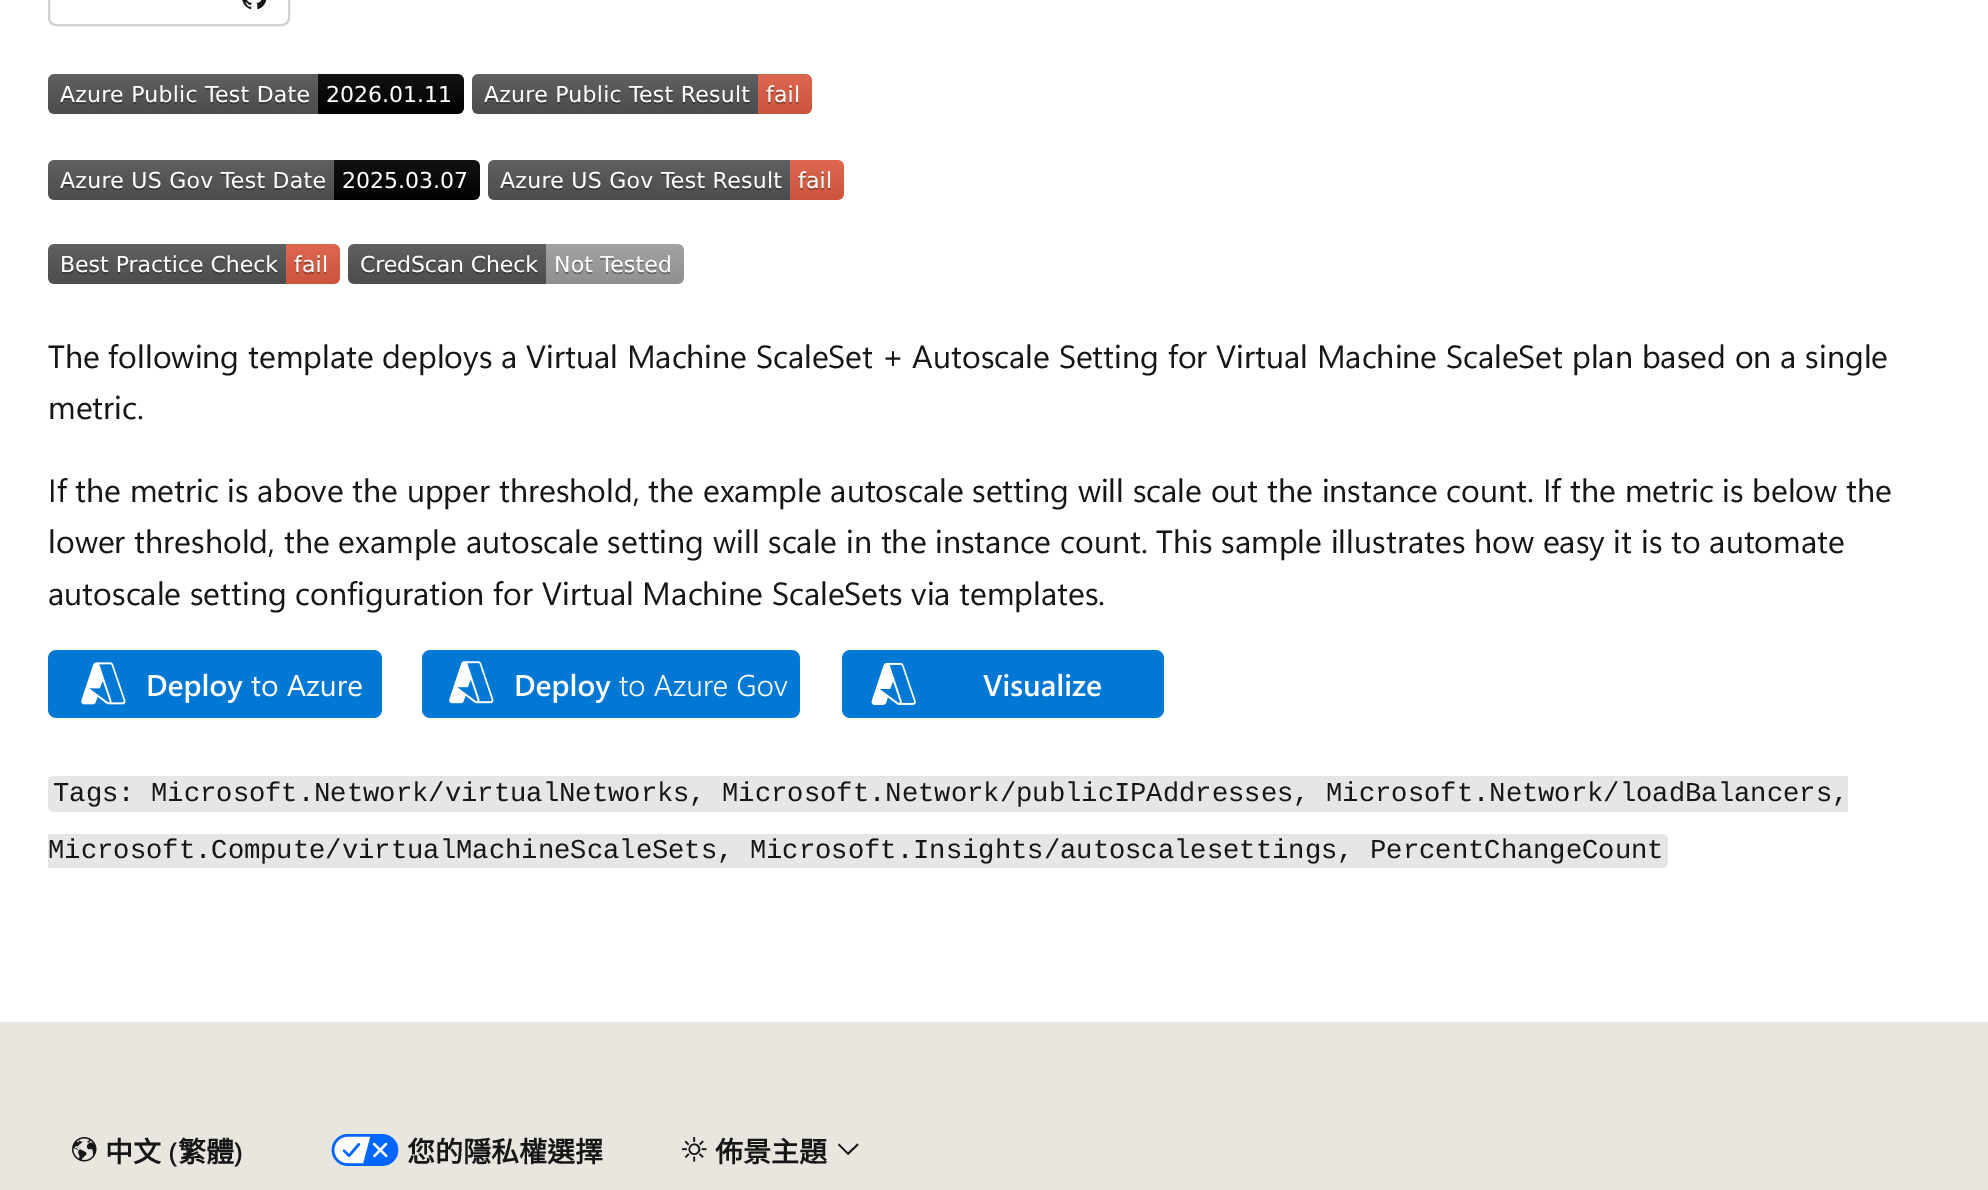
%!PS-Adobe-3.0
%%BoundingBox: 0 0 1988 1190
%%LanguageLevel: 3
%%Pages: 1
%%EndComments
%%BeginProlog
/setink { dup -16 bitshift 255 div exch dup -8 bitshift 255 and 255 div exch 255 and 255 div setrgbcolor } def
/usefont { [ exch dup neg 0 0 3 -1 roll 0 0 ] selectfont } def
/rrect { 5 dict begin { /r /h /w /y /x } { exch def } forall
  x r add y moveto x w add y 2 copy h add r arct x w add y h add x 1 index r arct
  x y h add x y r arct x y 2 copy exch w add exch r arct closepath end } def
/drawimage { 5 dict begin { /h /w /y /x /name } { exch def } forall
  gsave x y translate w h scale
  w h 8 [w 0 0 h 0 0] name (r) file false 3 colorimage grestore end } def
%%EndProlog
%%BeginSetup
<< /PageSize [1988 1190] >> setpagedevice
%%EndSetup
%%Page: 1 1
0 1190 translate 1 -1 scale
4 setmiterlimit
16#FFFFFF setink
0 0 1988 1190 rectfill
16#D1D1D1 setink
2 setlinewidth
49 -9 240 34 7 rrect stroke
(img1.raw) 242 0 25 10 drawimage
(img2.raw) 48 74 416 40 drawimage
(img3.raw) 472 74 340 40 drawimage
(img4.raw) 48 160 432 40 drawimage
(img5.raw) 488 160 356 40 drawimage
(img6.raw) 48 244 292 40 drawimage
(img7.raw) 348 244 336 40 drawimage
/SegoeUI-Regular 32 usefont
16#161616 setink
[
    [(The following template deploys a Virtual Machine ScaleSet + Autoscale Setting for Virtual Machine ScaleSet plan based on a single) 48 368]
    [(metric.) 48 419]
    [(If the metric is above the upper threshold, the example autoscale setting will scale out the instance count. If the metric is below the) 48 502]
    [(lower threshold, the example autoscale setting will scale in the instance count. This sample illustrates how easy it is to automate) 48 553]
    [(autoscale setting configuration for Virtual Machine ScaleSets via templates.) 48 605]
] { aload pop moveto show } forall
(img8.raw) 48 650 334 68 drawimage
(img9.raw) 422 650 378 68 drawimage
(img10.raw) 842 650 322 68 drawimage
16#E6E6E6 setink
54 776 moveto 1848 776 lineto 1848 812 lineto 54 812 lineto 50.5 812 48 809.5 48 806 curveto 48 782 lineto 48 778.5 50.5 776 54 776 curveto closepath fill
/LiberationMono-Regular 27.2 usefont
16#161616 setink
53 801 moveto (Tags: Microsoft.Network/virtualNetworks, Microsoft.Network/publicIPAddresses, Microsoft.Network/loadBalancers,) show
16#E6E6E6 setink
48 834 moveto 1662 834 lineto 1665.5 834 1668 836.5 1668 840 curveto 1668 862 lineto 1668 865.5 1665.5 868 1662 868 curveto 48 868 lineto closepath fill
16#161616 setink
48 858 moveto (Microsoft.Compute/virtualMachineScaleSets, Microsoft.Insights/autoscalesettings, PercentChangeCount) show
16#E8E6DF setink
0 1024 1988 166 rectfill
16#E6E6E6 setink
0 1022 1988 2 rectfill
(img11.raw) 72 1137 25 25 drawimage
/NotoSansCJKTC-Bold 28 usefont
16#161616 setink
105 1162 moveto (中文) show
/SegoeUI-SemiBold 28 usefont
168 1162 moveto (\() show
/NotoSansCJKTC-Bold 28 usefont
178 1162 moveto (繁體) show
/SegoeUI-SemiBold 28 usefont
234 1162 moveto (\)) show
(img12.raw) 331 1134 68 32 drawimage
/NotoSansCJKTC-Bold 28 usefont
407 1162 moveto (您的隱私權選擇) show
(img13.raw) 682 1137 25 25 drawimage
715 1162 moveto (佈景主題) show
848 1155 moveto 838 1145 lineto 839 1143.5 lineto 848 1152.5 lineto 857.5 1143.5 lineto 858.5 1145 lineto closepath fill
showpage
%%EOF
